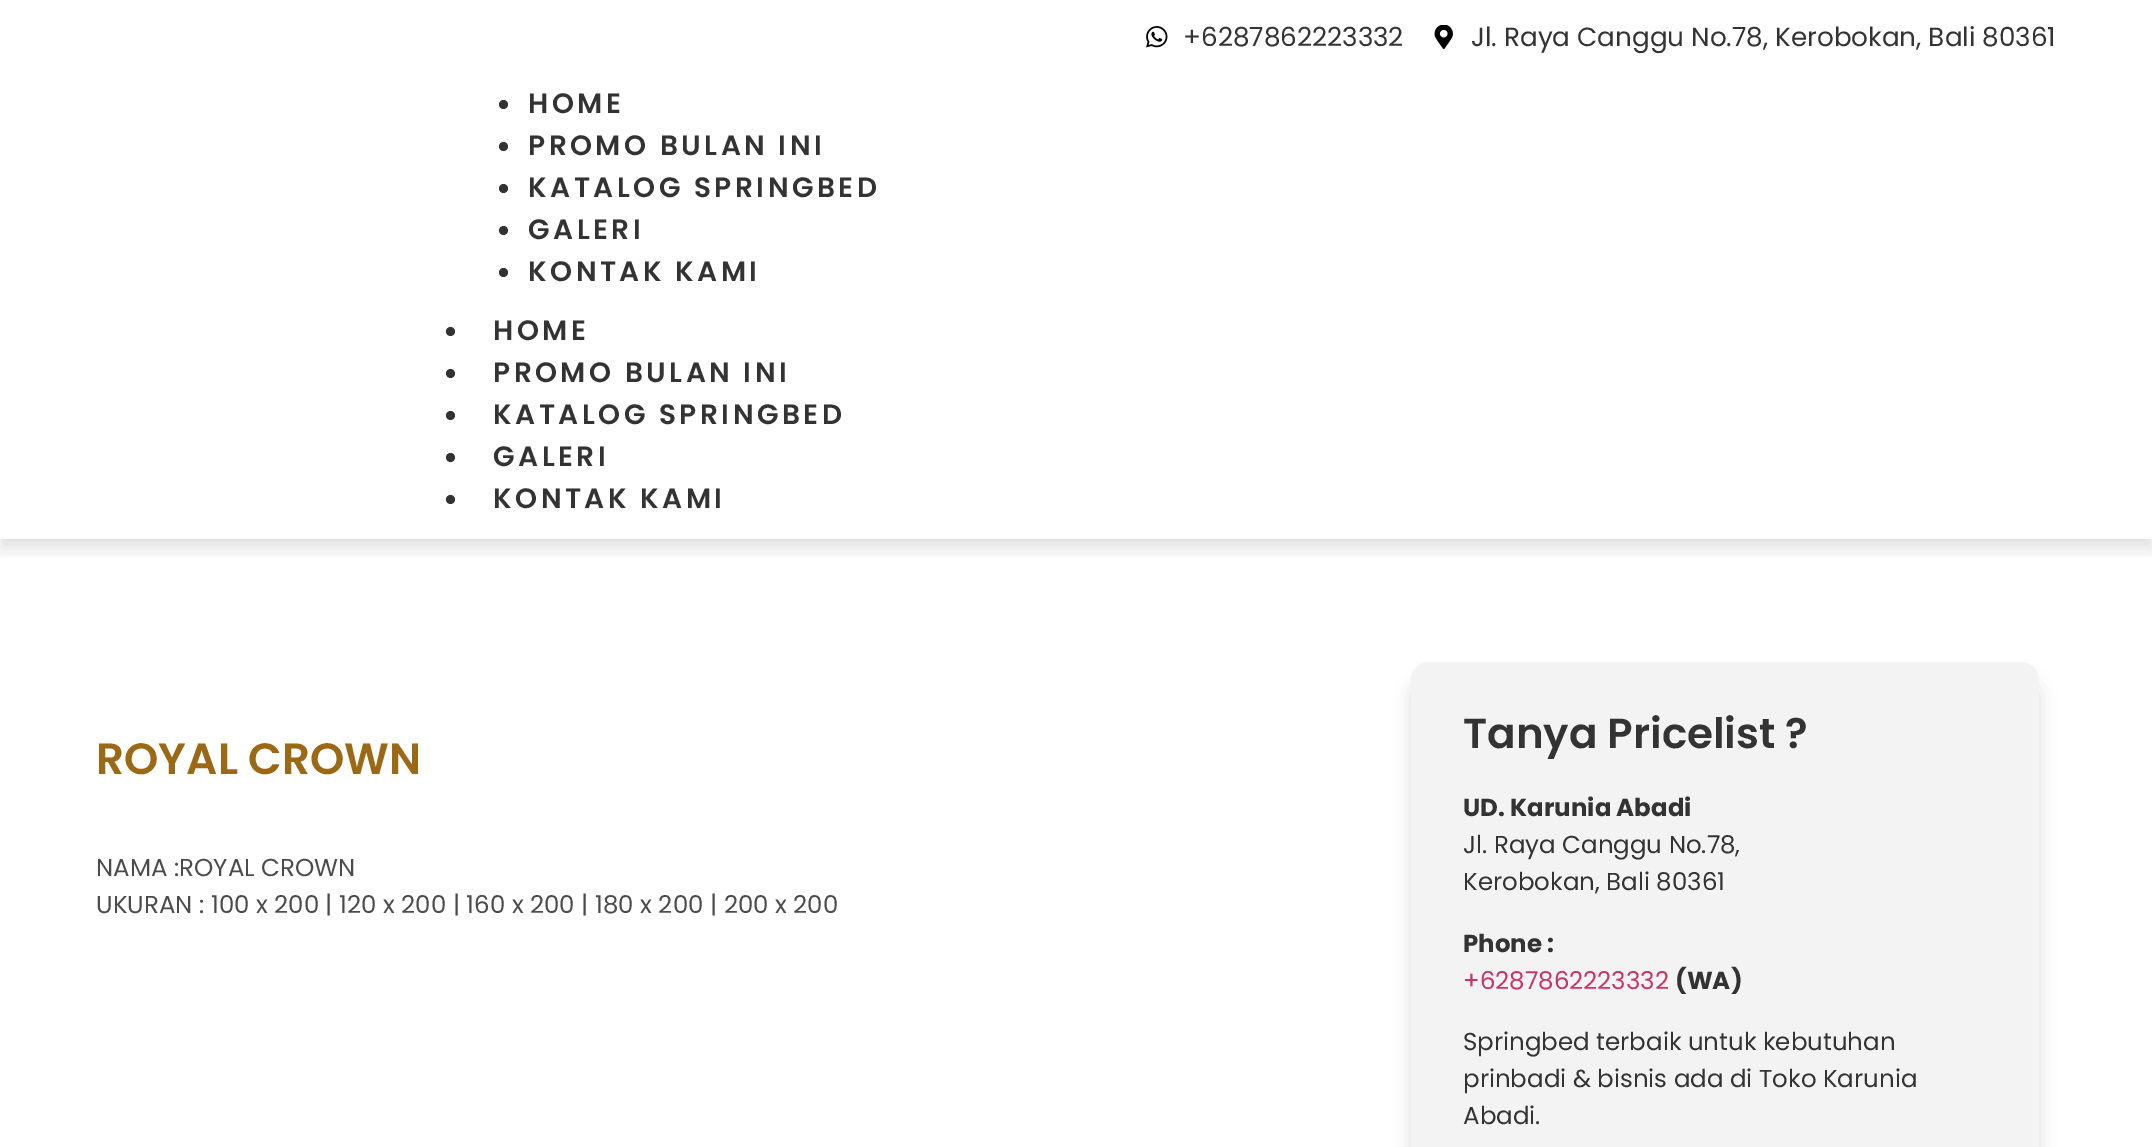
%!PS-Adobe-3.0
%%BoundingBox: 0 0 2152 1147
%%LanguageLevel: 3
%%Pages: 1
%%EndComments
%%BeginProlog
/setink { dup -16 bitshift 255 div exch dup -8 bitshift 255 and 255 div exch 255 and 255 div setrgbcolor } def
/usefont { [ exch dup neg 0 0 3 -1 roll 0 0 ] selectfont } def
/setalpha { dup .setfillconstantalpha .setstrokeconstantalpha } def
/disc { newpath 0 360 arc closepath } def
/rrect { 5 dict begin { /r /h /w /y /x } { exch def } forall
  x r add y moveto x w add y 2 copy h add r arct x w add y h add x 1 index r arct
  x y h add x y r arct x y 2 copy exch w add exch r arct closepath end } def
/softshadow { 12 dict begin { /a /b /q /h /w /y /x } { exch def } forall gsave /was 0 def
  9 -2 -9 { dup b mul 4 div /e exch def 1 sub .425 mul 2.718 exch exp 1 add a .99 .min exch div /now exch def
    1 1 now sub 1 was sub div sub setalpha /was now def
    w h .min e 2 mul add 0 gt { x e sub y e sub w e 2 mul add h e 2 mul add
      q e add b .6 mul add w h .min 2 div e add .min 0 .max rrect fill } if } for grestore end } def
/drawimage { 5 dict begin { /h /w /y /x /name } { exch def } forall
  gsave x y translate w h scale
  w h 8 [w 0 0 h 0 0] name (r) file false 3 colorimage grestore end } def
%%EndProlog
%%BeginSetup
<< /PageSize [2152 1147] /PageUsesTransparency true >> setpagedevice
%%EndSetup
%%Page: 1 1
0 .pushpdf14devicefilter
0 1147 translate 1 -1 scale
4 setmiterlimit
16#FFFFFF setink
0 0 2152 1147 rectfill
gsave
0 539 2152 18 rectclip
16#000000 setink
0 9 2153 539 0 9 0.12 softshadow
grestore
(img1.raw) 1146 26 22 22 drawimage
/Poppins-Regular 26.25 usefont
16#333333 setink
1183 46 moveto (+6287862223332) show
(img2.raw) 1434 25 19 24 drawimage
1471 46 moveto (Jl. Raya Canggu No.78, Kerobokan, Bali 80361) show
503.5 104.5 4.5 disc fill
/Poppins-SemiBold 28 usefont
528 113 moveto 3.5 0 (HOME) ashow
503.5 146.5 4.5 disc fill
528 155 moveto 3.5 0 (PROMO BULAN INI) ashow
503.5 188.5 4.5 disc fill
528 197 moveto 3.5 0 (KATALOG SPRINGBED) ashow
503.5 230.5 4.5 disc fill
528 239 moveto 3.5 0 (GALERI) ashow
503.5 272.5 4.5 disc fill
528 281 moveto 3.5 0 (KONTAK KAMI) ashow
450.5 331.5 4.5 disc fill
493 340 moveto 3.5 0 (HOME) ashow
450.5 373.5 4.5 disc fill
493 382 moveto 3.5 0 (PROMO BULAN INI) ashow
450.5 415.5 4.5 disc fill
493 424 moveto 3.5 0 (KATALOG SPRINGBED) ashow
450.5 457.5 4.5 disc fill
493 466 moveto 3.5 0 (GALERI) ashow
450.5 499.5 4.5 disc fill
493 508 moveto 3.5 0 (KONTAK KAMI) ashow
/Poppins-SemiBold 43.75 usefont
16#9B6815 setink
96 774 moveto (ROYAL CROWN) show
/Poppins-Regular 24.5 usefont
16#4B4B4B setink
96 876 moveto (NAMA :ROYAL CROWN) show
96 913 moveto (UKURAN : 100 x 200 | 120 x 200 | 160 x 200 | 180 x 200 | 200 x 200) show
16#000000 setink
1411 679 628 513 18 9 0.13 softshadow
16#F3F3F3 setink
1411 662 628 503 18 rrect fill
/Poppins-SemiBold 42 usefont
16#333333 setink
1463 748 moveto (Tanya Pricelist ?) show
/Poppins-Bold 24.5 usefont
1463 816 moveto (UD. Karunia Abadi) show
/Poppins-Regular 24.5 usefont
1463 853 moveto (Jl. Raya Canggu No.78,) show
1463 890 moveto (Kerobokan, Bali 80361) show
/Poppins-Bold 24.5 usefont
1463 952 moveto (Phone :) show
/Poppins-Regular 24.5 usefont
16#CC3366 setink
1463 989 moveto (+6287862223332) show
/Poppins-Bold 24.5 usefont
16#333333 setink
1675 989 moveto (\(WA\)) show
/Poppins-Regular 24.5 usefont
[
    [(Springbed terbaik untuk kebutuhan) 1463 1050]
    [(prinbadi & bisnis ada di Toko Karunia) 1463 1087]
    [(Abadi.) 1463 1124]
] { aload pop moveto show } forall
.poppdf14devicefilter showpage
%%EOF
